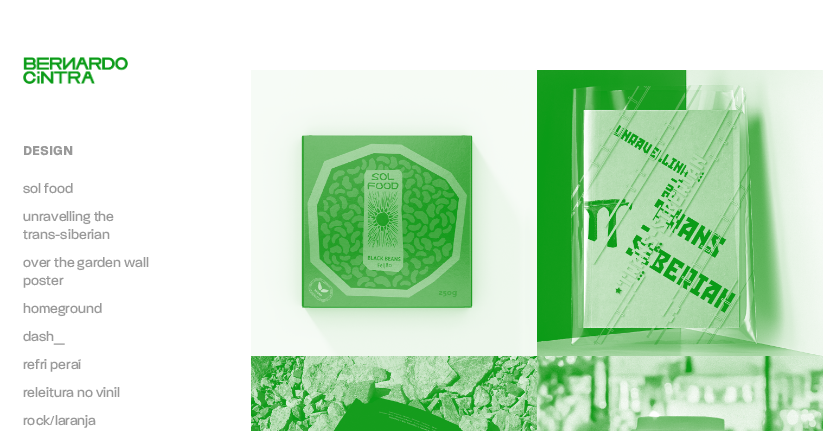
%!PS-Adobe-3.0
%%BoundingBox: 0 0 823 431
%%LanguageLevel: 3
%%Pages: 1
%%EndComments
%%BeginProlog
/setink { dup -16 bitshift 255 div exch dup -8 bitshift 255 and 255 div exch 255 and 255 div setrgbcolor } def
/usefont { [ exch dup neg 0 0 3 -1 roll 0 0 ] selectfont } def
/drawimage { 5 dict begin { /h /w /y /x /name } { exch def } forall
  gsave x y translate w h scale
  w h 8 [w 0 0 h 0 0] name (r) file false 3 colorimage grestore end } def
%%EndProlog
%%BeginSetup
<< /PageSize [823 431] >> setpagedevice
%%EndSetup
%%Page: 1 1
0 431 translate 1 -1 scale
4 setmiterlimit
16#FFFFFF setink
0 0 823 431 rectfill
(img1.raw) 23 57 105 27 drawimage
/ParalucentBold-Bold 14 usefont
16#999999 setink
23 155 moveto (DESIGN) show
/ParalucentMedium-Medium 14 usefont
[
    [(sol food) 23 193]
    [(unravelling the) 23 221]
    [(trans-siberian) 23 239]
    [(over the garden wall) 23 267]
    [(poster) 23 285]
    [(homeground) 23 313]
    [(dash_) 23 341]
    [(refri peraí) 23 369]
    [(releitura no vinil) 23 397]
    [(rock/laranja) 23 425]
] { aload pop moveto show } forall
(img2.raw) 251 70 286 286 drawimage
(img3.raw) 537 70 286 286 drawimage
(img4.raw) 251 356 286 75 drawimage
(img5.raw) 537 356 286 75 drawimage
showpage
%%EOF
